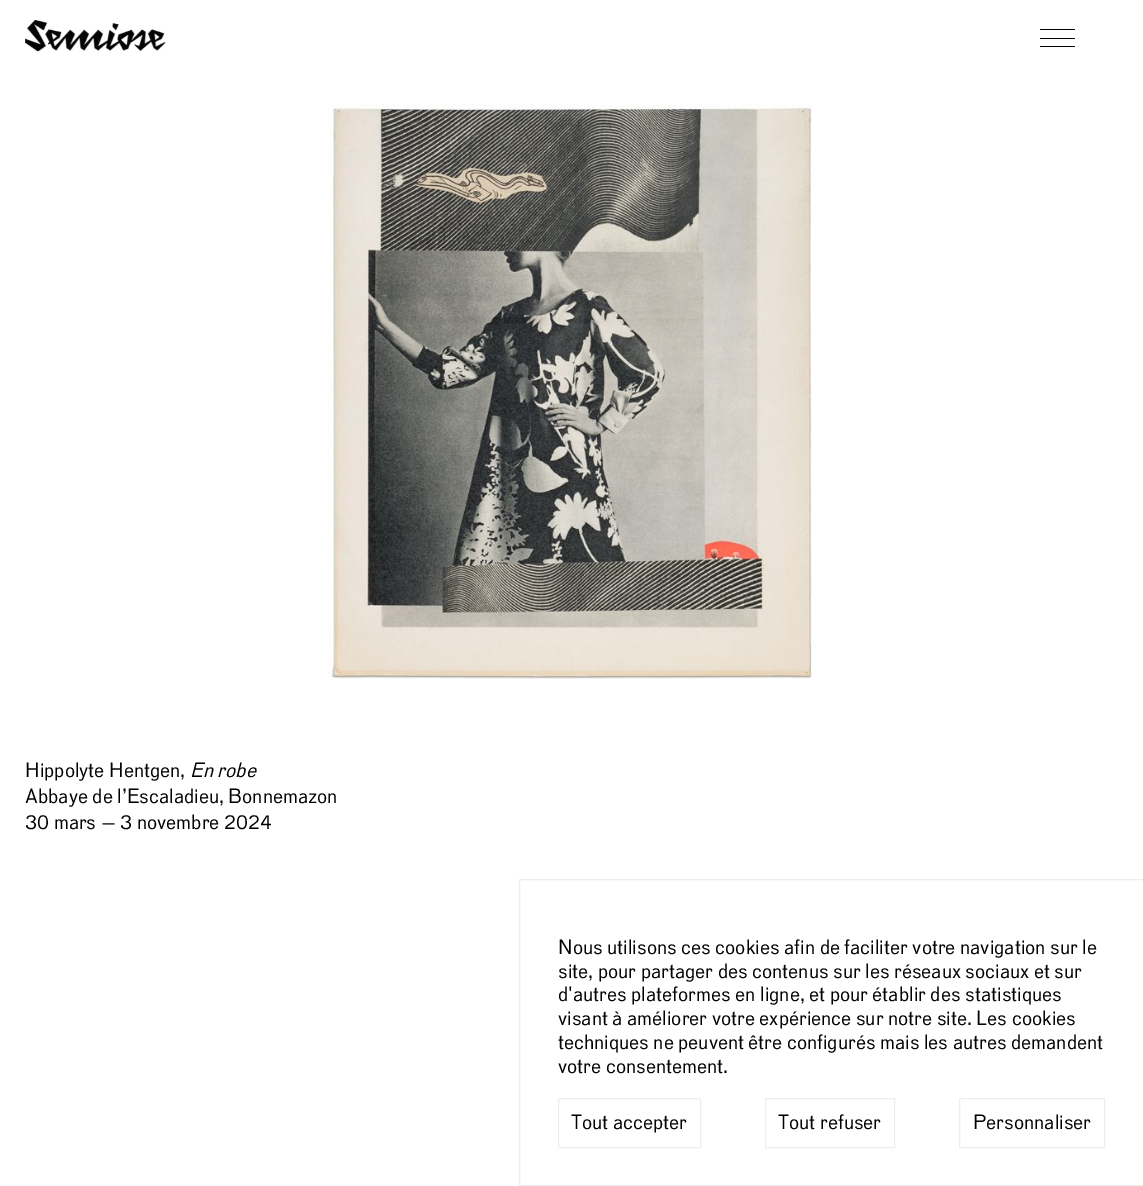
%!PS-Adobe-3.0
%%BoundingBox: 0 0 1143 1186
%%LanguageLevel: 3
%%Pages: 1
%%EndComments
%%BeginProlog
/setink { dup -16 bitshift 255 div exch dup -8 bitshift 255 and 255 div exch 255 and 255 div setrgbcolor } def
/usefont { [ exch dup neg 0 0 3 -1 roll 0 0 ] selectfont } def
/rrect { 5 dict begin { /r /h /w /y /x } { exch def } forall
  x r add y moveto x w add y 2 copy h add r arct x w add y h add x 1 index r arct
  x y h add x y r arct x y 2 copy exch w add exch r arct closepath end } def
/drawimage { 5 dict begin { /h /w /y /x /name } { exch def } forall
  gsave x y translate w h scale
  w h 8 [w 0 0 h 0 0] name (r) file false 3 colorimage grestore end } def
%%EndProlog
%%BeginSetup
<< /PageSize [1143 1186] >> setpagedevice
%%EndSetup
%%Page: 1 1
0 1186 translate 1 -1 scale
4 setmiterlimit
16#FFFFFF setink
0 0 1143 1186 rectfill
(img1.raw) 25 20 141 32 drawimage
16#000000 setink
1040 38 35 1 0.5 rrect fill
1040 29 35 1 0.5 rrect fill
1040 46 35 1 0.5 rrect fill
(img2.raw) 328 104 484 575 drawimage
/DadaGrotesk-Regular 20 usefont
25 777 moveto (Hippolyte Hentgen,) show
/DadaGrotesk-Italic 20 usefont
190 777 moveto (En robe) show
/DadaGrotesk-Regular 20 usefont
25 803 moveto (Abbaye de l’Escaladieu, Bonnemazon) show
25 829 moveto (30 mars — 3 novembre 2024) show
16#EEEEEE setink
519.5 879.5 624 306 rectstroke
16#000000 setink
[
    [(Nous utilisons ces cookies afin de faciliter votre navigation sur le) 558 954]
    [(site, pour partager des contenus sur les réseaux sociaux et sur) 558 978]
    [(d'autres plateformes en ligne, et pour établir des statistiques) 558 1001]
    [(visant à améliorer votre expérience sur notre site. Les cookies) 558 1025]
    [(techniques ne peuvent être configurés mais les autres demandent) 558 1049]
    [(votre consentement.) 558 1073]
] { aload pop moveto show } forall
16#EEEEEE setink
558.5 1098.5 142 49 rectstroke
16#000000 setink
571 1129 moveto (Tout accepter) show
16#EEEEEE setink
765.5 1098.5 129 49 rectstroke
16#000000 setink
778 1129 moveto (Tout refuser) show
16#EEEEEE setink
959.5 1098.5 145 49 rectstroke
16#000000 setink
973 1129 moveto (Personnaliser) show
showpage
%%EOF
